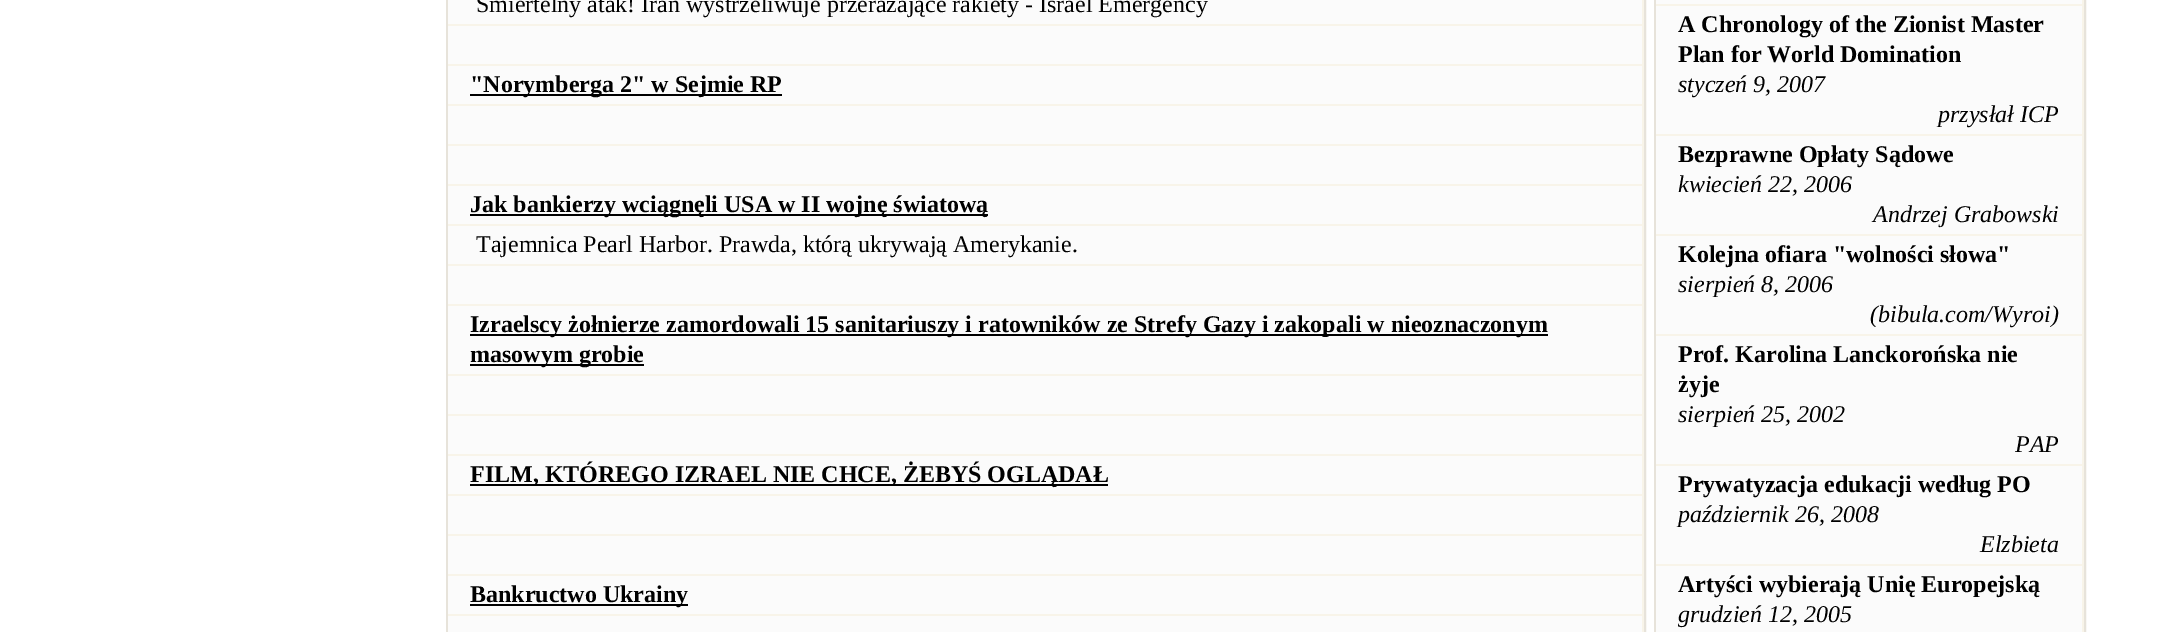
%!PS-Adobe-3.0
%%BoundingBox: 0 0 2181 632
%%LanguageLevel: 3
%%Pages: 1
%%EndComments
%%BeginProlog
/setink { dup -16 bitshift 255 div exch dup -8 bitshift 255 and 255 div exch 255 and 255 div setrgbcolor } def
/usefont { [ exch dup neg 0 0 3 -1 roll 0 0 ] selectfont } def
%%EndProlog
%%BeginSetup
<< /PageSize [2181 632] >> setpagedevice
%%EndSetup
%%Page: 1 1
0 632 translate 1 -1 scale
4 setmiterlimit
16#FFFFFF setink
0 0 2181 632 rectfill
16#E7E3DA setink
2 setlinewidth
447 -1 1198 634 rectstroke
16#FBFBFB setink
448 0 1194 24 rectfill
16#F8F4E9 setink
1642 0 2 24 rectfill
/LiberationSerif-Regular 24 usefont
16#000000 setink
476 12 moveto (Śmiertelny atak! Iran wystrzeliwuje przerażające rakiety - Israel Emergency) show
[
    [448 26 1194 38 16#FBFBFB]
    [448 24 1196 2 16#F8F4E9]
    [1642 24 2 40 16#F8F4E9]
    [448 66 1194 38 16#FBFBFB]
    [448 64 1196 2 16#F8F4E9]
    [1642 64 2 40 16#F8F4E9]
    [470 94 312 2 16#000000]
] { aload pop setink rectfill } forall
/LiberationSerif-Bold 24 usefont
470 92 moveto ("Norymberga 2" w Sejmie RP) show
[
    [448 106 1194 38 16#FBFBFB]
    [448 104 1196 2 16#F8F4E9]
    [1642 104 2 40 16#F8F4E9]
    [448 146 1194 38 16#FBFBFB]
    [448 144 1196 2 16#F8F4E9]
    [1642 144 2 40 16#F8F4E9]
    [448 186 1194 38 16#FBFBFB]
    [448 184 1196 2 16#F8F4E9]
    [1642 184 2 40 16#F8F4E9]
    [470 214 518 2 16#000000]
] { aload pop setink rectfill } forall
470 212 moveto (Jak bankierzy wciągnęli USA w II wojnę światową) show
[
    [448 226 1194 38 16#FBFBFB]
    [448 224 1196 2 16#F8F4E9]
    [1642 224 2 40 16#F8F4E9]
] { aload pop setink rectfill } forall
/LiberationSerif-Regular 24 usefont
16#000000 setink
476 252 moveto (Tajemnica Pearl Harbor. Prawda, którą ukrywają Amerykanie.) show
[
    [448 266 1194 38 16#FBFBFB]
    [448 264 1196 2 16#F8F4E9]
    [1642 264 2 40 16#F8F4E9]
    [448 306 1194 68 16#FBFBFB]
    [448 304 1196 2 16#F8F4E9]
    [1642 304 2 70 16#F8F4E9]
    [470 334 1078 2 16#000000]
] { aload pop setink rectfill } forall
/LiberationSerif-Bold 24 usefont
470 332 moveto (Izraelscy żołnierze zamordowali 15 sanitariuszy i ratowników ze Strefy Gazy i zakopali w nieoznaczonym) show
470 364 174 2 rectfill
470 362 moveto (masowym grobie) show
[
    [448 376 1194 38 16#FBFBFB]
    [448 374 1196 2 16#F8F4E9]
    [1642 374 2 40 16#F8F4E9]
    [448 416 1194 38 16#FBFBFB]
    [448 414 1196 2 16#F8F4E9]
    [1642 414 2 40 16#F8F4E9]
    [448 456 1194 38 16#FBFBFB]
    [448 454 1196 2 16#F8F4E9]
    [1642 454 2 40 16#F8F4E9]
    [470 484 638 2 16#000000]
] { aload pop setink rectfill } forall
470 482 moveto (FILM, KTÓREGO IZRAEL NIE CHCE, ŻEBYŚ OGLĄDAŁ) show
[
    [448 496 1194 38 16#FBFBFB]
    [448 494 1196 2 16#F8F4E9]
    [1642 494 2 40 16#F8F4E9]
    [448 536 1194 38 16#FBFBFB]
    [448 534 1196 2 16#F8F4E9]
    [1642 534 2 40 16#F8F4E9]
    [448 576 1194 38 16#FBFBFB]
    [448 574 1196 2 16#F8F4E9]
    [1642 574 2 40 16#F8F4E9]
    [470 604 218 2 16#000000]
] { aload pop setink rectfill } forall
470 602 moveto (Bankructwo Ukrainy) show
[
    [448 616 1194 16 16#FBFBFB]
    [448 614 1196 2 16#F8F4E9]
    [1642 614 2 18 16#F8F4E9]
] { aload pop setink rectfill } forall
16#E7E3DA setink
1655 -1 430 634 rectstroke
[
    [1656 0 428 4 16#FBFBFB]
    [2082 0 2 4 16#F8F4E9]
    [1656 6 426 128 16#FBFBFB]
    [1656 4 428 2 16#F8F4E9]
    [2082 4 2 130 16#F8F4E9]
] { aload pop setink rectfill } forall
16#000000 setink
1678 32 moveto (A Chronology of the Zionist Master) show
1678 62 moveto (Plan for World Domination) show
/LiberationSerif-Italic 24 usefont
1678 92 moveto (styczeń 9, 2007) show
1938 122 moveto (przysłał ICP) show
[
    [1656 136 426 98 16#FBFBFB]
    [1656 134 428 2 16#F8F4E9]
    [2082 134 2 100 16#F8F4E9]
] { aload pop setink rectfill } forall
/LiberationSerif-Bold 24 usefont
16#000000 setink
1678 162 moveto (Bezprawne Opłaty Sądowe) show
/LiberationSerif-Italic 24 usefont
1678 192 moveto (kwiecień 22, 2006) show
1873 222 moveto (Andrzej Grabowski) show
[
    [1656 236 426 98 16#FBFBFB]
    [1656 234 428 2 16#F8F4E9]
    [2082 234 2 100 16#F8F4E9]
] { aload pop setink rectfill } forall
/LiberationSerif-Bold 24 usefont
16#000000 setink
1678 262 moveto (Kolejna ofiara "wolności słowa") show
/LiberationSerif-Italic 24 usefont
1678 292 moveto (sierpień 8, 2006) show
1870 322 moveto (\(bibula.com/Wyroi\)) show
[
    [1656 336 426 128 16#FBFBFB]
    [1656 334 428 2 16#F8F4E9]
    [2082 334 2 130 16#F8F4E9]
] { aload pop setink rectfill } forall
/LiberationSerif-Bold 24 usefont
16#000000 setink
1678 362 moveto (Prof. Karolina Lanckorońska nie) show
1678 392 moveto (żyje) show
/LiberationSerif-Italic 24 usefont
1678 422 moveto (sierpień 25, 2002) show
2015 452 moveto (PAP) show
[
    [1656 466 426 98 16#FBFBFB]
    [1656 464 428 2 16#F8F4E9]
    [2082 464 2 100 16#F8F4E9]
] { aload pop setink rectfill } forall
/LiberationSerif-Bold 24 usefont
16#000000 setink
1678 492 moveto (Prywatyzacja edukacji według PO) show
/LiberationSerif-Italic 24 usefont
1678 522 moveto (październik 26, 2008) show
1980 552 moveto (Elzbieta) show
[
    [1656 566 426 66 16#FBFBFB]
    [1656 564 428 2 16#F8F4E9]
    [2082 564 2 68 16#F8F4E9]
] { aload pop setink rectfill } forall
/LiberationSerif-Bold 24 usefont
16#000000 setink
1678 592 moveto (Artyści wybierają Unię Europejską) show
/LiberationSerif-Italic 24 usefont
1678 622 moveto (grudzień 12, 2005) show
showpage
%%EOF
